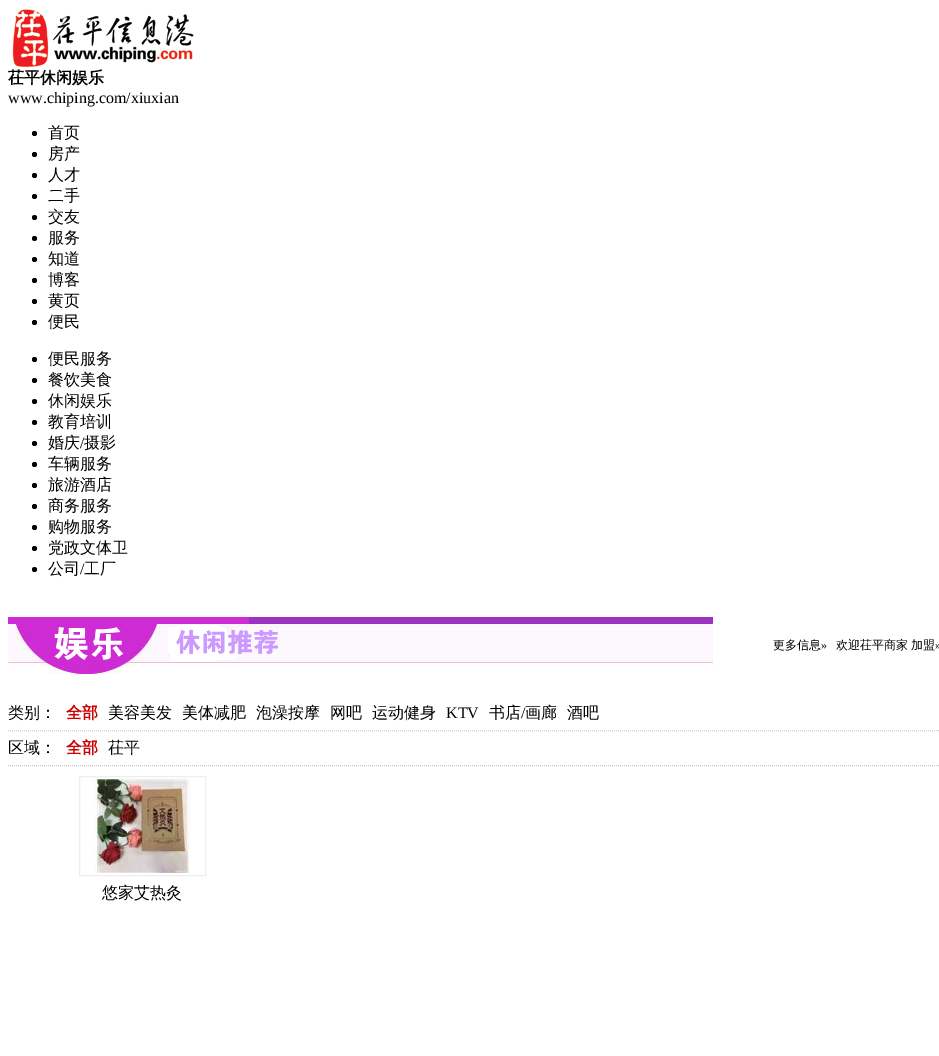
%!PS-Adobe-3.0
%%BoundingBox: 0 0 939 1056
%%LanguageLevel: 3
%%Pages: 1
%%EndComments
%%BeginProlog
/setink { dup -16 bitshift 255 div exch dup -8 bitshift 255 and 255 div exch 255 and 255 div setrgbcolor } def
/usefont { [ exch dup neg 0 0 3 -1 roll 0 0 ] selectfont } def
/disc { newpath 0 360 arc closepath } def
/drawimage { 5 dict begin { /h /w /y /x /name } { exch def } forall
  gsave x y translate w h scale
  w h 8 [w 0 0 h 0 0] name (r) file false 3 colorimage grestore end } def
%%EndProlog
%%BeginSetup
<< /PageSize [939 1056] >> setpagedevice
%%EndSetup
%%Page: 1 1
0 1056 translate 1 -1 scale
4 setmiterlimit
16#FFFFFF setink
0 0 939 1056 rectfill
(img1.raw) 12 9 182 58 drawimage
/WenQuanYiZenHei-Bold 16 usefont
16#000000 setink
8 83 moveto (茌平休闲娱乐) show
/LiberationSerif-Regular 16 usefont
8 103 moveto (www.chiping.com/xiuxian) show
34.5 133.5 2.5 disc fill
/WenQuanYiZenHei-Medium 16 usefont
48 138 moveto (首页) show
34.5 154.5 2.5 disc fill
48 159 moveto (房产) show
34.5 175.5 2.5 disc fill
48 180 moveto (人才) show
34.5 196.5 2.5 disc fill
48 201 moveto (二手) show
34.5 217.5 2.5 disc fill
48 222 moveto (交友) show
34.5 238.5 2.5 disc fill
48 243 moveto (服务) show
34.5 259.5 2.5 disc fill
48 264 moveto (知道) show
34.5 280.5 2.5 disc fill
48 285 moveto (博客) show
34.5 301.5 2.5 disc fill
48 306 moveto (黄页) show
34.5 322.5 2.5 disc fill
48 327 moveto (便民) show
34.5 359.5 2.5 disc fill
48 364 moveto (便民服务) show
34.5 380.5 2.5 disc fill
48 385 moveto (餐饮美食) show
34.5 401.5 2.5 disc fill
48 406 moveto (休闲娱乐) show
34.5 422.5 2.5 disc fill
48 427 moveto (教育培训) show
34.5 443.5 2.5 disc fill
48 448 moveto (婚庆) show
/LiberationSerif-Regular 16 usefont
80 448 moveto (/) show
/WenQuanYiZenHei-Medium 16 usefont
84 448 moveto (摄影) show
34.5 464.5 2.5 disc fill
48 469 moveto (车辆服务) show
34.5 485.5 2.5 disc fill
48 490 moveto (旅游酒店) show
34.5 506.5 2.5 disc fill
48 511 moveto (商务服务) show
34.5 527.5 2.5 disc fill
48 532 moveto (购物服务) show
34.5 548.5 2.5 disc fill
48 553 moveto (党政文体卫) show
34.5 569.5 2.5 disc fill
48 574 moveto (公司) show
/LiberationSerif-Regular 16 usefont
80 574 moveto (/) show
/WenQuanYiZenHei-Medium 16 usefont
84 574 moveto (工厂) show
(img2.raw) 8 617 705 57 drawimage
/WenQuanYiZenHei-Medium 12 usefont
773 649 moveto (更多信息) show
/LiberationSerif-Regular 12 usefont
821 649 moveto (») show
/WenQuanYiZenHei-Medium 12 usefont
836 649 moveto (欢迎茌平商家) show
911 649 moveto (加盟) show
/LiberationSerif-Regular 12 usefont
935 649 moveto (») show
16#CCCCCC setink
[1 1] 0 setdash
8 730.5 moveto 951 730.5 lineto stroke
/WenQuanYiZenHei-Medium 16 usefont
16#000000 setink
8 718 moveto (类别：) show
/WenQuanYiZenHei-Bold 16 usefont
16#CC0000 setink
66 718 moveto (全部) show
/WenQuanYiZenHei-Medium 16 usefont
16#000000 setink
[
    [(美容美发) 108 718]
    [(美体减肥) 182 718]
    [(泡澡按摩) 256 718]
    [(网吧) 330 718]
    [(运动健身) 372 718]
] { aload pop moveto show } forall
/LiberationSerif-Regular 16 usefont
446 718 moveto (KTV) show
/WenQuanYiZenHei-Medium 16 usefont
489 718 moveto (书店) show
/LiberationSerif-Regular 16 usefont
521 718 moveto (/) show
/WenQuanYiZenHei-Medium 16 usefont
525 718 moveto (画廊) show
567 718 moveto (酒吧) show
16#CCCCCC setink
8 765.5 moveto 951 765.5 lineto stroke
16#000000 setink
8 753 moveto (区域：) show
/WenQuanYiZenHei-Bold 16 usefont
16#CC0000 setink
66 753 moveto (全部) show
/WenQuanYiZenHei-Medium 16 usefont
16#000000 setink
108 753 moveto (茌平) show
16#EEEEEE setink
[] 0 setdash
79.5 776.5 126 99 rectstroke
(img3.raw) 94 779 97 94 drawimage
16#000000 setink
102 898 moveto (悠家艾热灸) show
showpage
%%EOF
